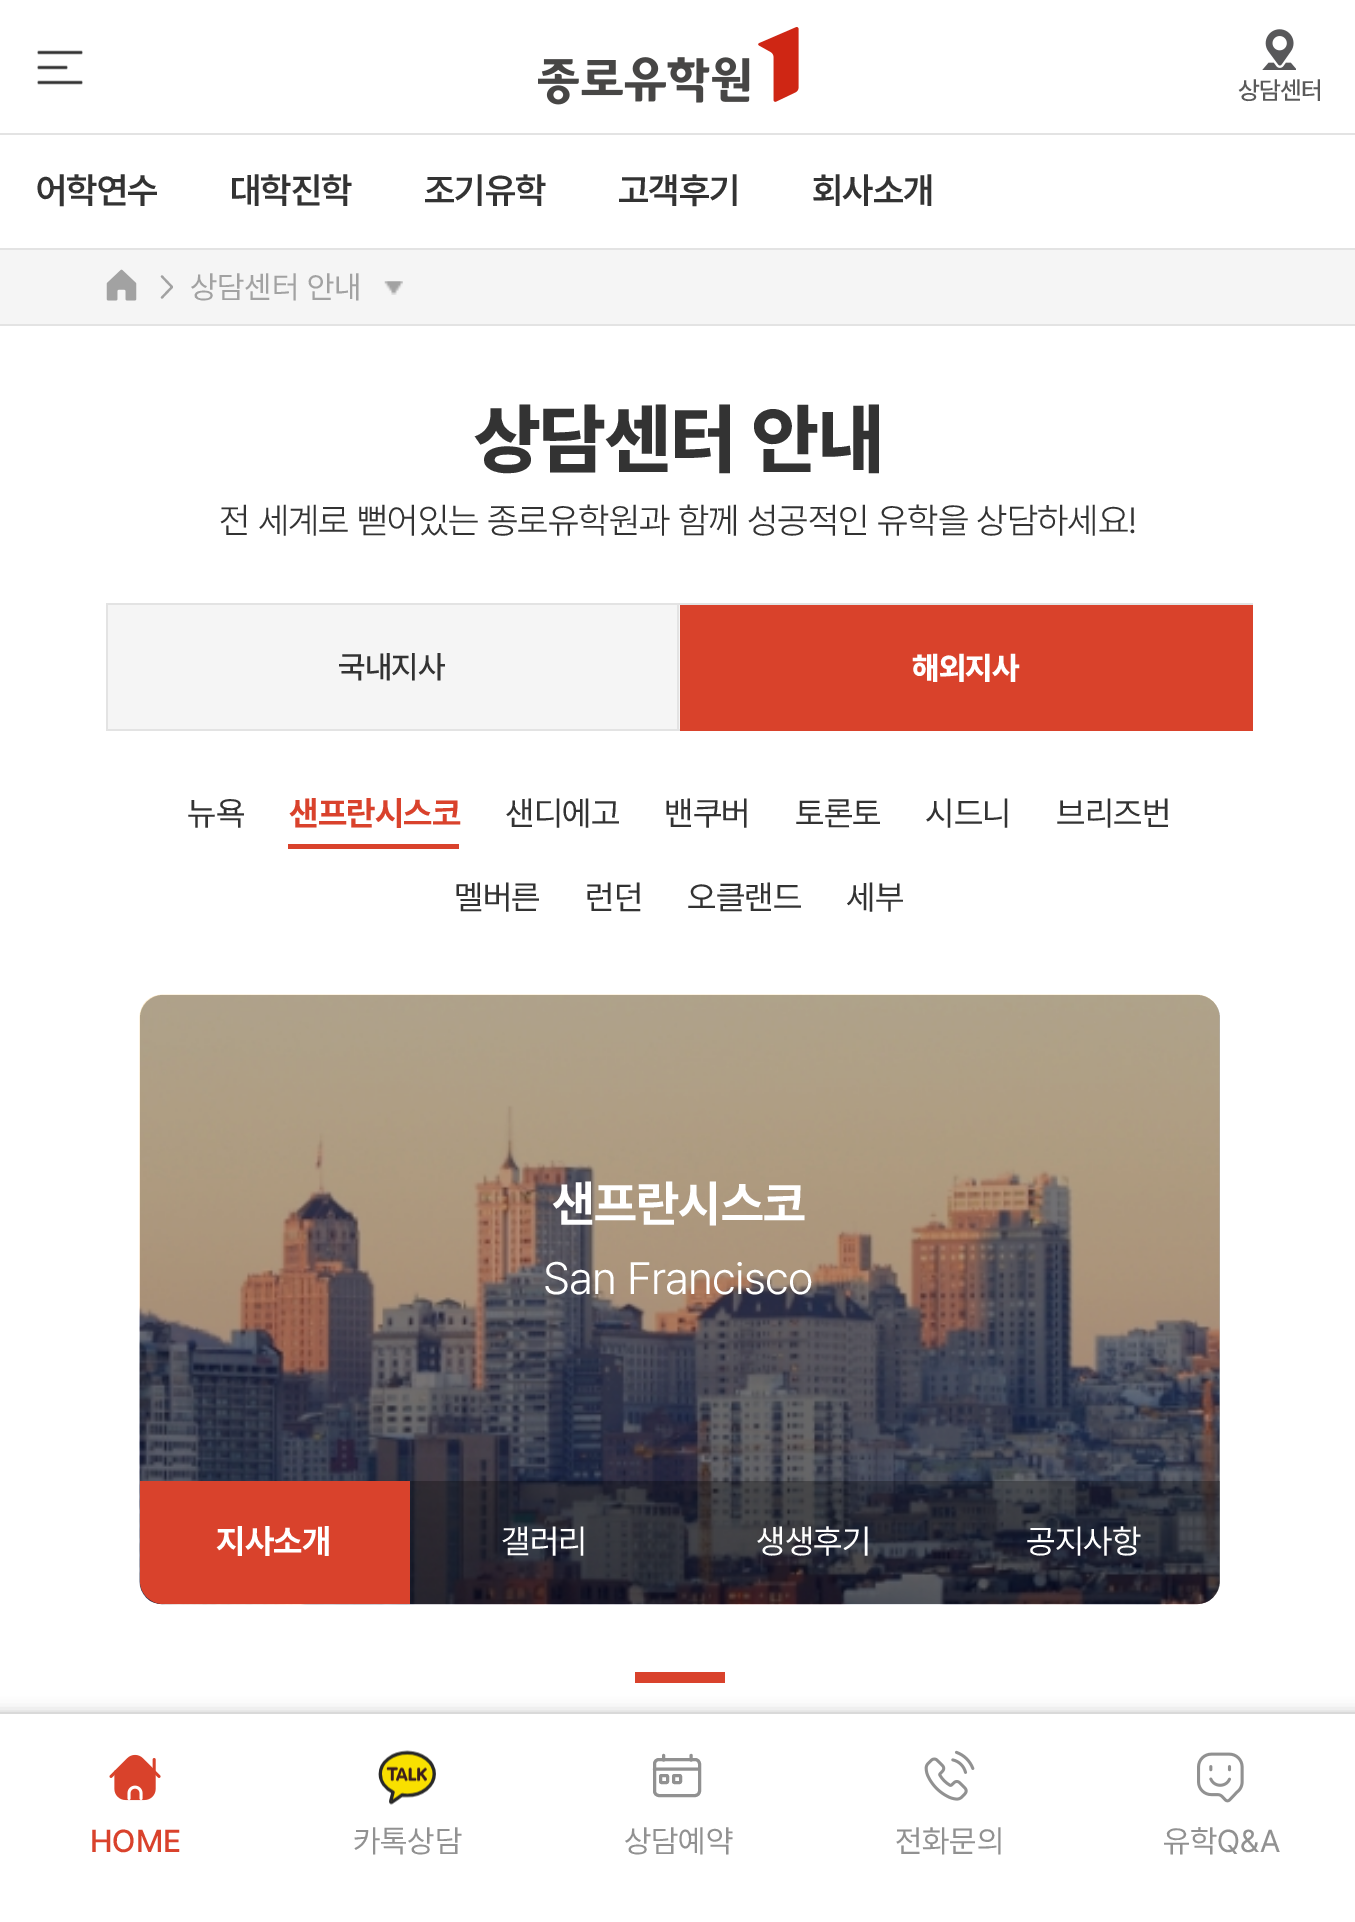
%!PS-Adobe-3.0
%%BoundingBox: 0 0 1355 1922
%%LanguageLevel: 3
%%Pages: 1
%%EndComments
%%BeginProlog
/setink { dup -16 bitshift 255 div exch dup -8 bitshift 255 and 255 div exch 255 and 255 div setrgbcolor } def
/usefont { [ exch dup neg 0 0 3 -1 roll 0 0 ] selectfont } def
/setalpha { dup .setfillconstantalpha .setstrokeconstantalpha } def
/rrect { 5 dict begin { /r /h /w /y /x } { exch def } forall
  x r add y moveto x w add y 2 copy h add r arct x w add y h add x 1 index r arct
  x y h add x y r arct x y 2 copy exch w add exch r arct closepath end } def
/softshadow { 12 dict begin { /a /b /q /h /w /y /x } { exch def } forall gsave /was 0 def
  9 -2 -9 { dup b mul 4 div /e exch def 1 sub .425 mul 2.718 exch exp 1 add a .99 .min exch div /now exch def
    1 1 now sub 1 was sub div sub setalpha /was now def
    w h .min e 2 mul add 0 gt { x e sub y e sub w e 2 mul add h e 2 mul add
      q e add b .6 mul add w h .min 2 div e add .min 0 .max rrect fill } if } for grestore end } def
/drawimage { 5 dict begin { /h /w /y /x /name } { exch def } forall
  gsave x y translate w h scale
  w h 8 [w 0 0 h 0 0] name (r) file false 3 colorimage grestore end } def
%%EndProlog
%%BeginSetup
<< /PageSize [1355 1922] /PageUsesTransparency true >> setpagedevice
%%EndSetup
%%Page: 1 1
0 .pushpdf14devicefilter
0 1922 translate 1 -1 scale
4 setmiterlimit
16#FFFFFF setink
0 0 1355 1922 rectfill
16#E3E3E3 setink
0 133 1355 2 rectfill
(img1.raw) 37 50 46 35 drawimage
(img2.raw) 538 27 261 78 drawimage
(img3.raw) 1262 29 34 41 drawimage
/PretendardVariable-Medium 25 usefont
16#5A5A5A setink
1238 99 moveto -0.65 0 (상담센터) ashow
16#E3E3E3 setink
0 248 1355 2 rectfill
/PretendardVariable-SemiBold 36 usefont
16#333333 setink
36 203 moveto -0.65 0 (어학연수) ashow
230 203 moveto -0.65 0 (대학진학) ashow
424 203 moveto -0.65 0 (조기유학) ashow
618 203 moveto -0.65 0 (고객후기) ashow
812 203 moveto -0.65 0 (회사소개) ashow
16#F5F5F5 setink
0 250 1355 74 rectfill
16#E3E3E3 setink
0 324 1355 2 rectfill
(img4.raw) 106 269 31 32 drawimage
16#A2A2A2 setink
2.2 setlinewidth
1 setlinecap
1 setlinejoin
162 276.5 moveto 172 287 lineto 162 297.5 lineto stroke
(img5.raw) 384 281 19 14 drawimage
/PretendardVariable-Regular 31.5 usefont
190 298 moveto (상담센터 안내) show
/PretendardVariable-ExtraBold 76.5 usefont
16#333333 setink
474 466 moveto -0.65 0 (상담센터 안내) ashow
/PretendardVariable-Light 36 usefont
219 533 moveto -0.65 0 (전 세계로 뻗어있는 종로유학원과 함께 성공적인 유학을 상담하세요!) ashow
[
    [106 603 1147 2 16#E3E3E3]
    [108 605 572 124 16#F5F5F5]
    [677 605 2 126 16#E3E3E3]
    [106 729 574 2 16#E3E3E3]
    [106 605 2 126 16#E3E3E3]
] { aload pop setink rectfill } forall
/PretendardVariable-Medium 31.5 usefont
16#333333 setink
338 678 moveto -0.65 0 (국내지사) ashow
16#D9422B setink
680 605 573 126 rectfill
/PretendardVariable-ExtraBold 31.5 usefont
16#FFFFFF setink
912 679 moveto -0.65 0 (해외지사) ashow
/PretendardVariable-Regular 33.75 usefont
16#333333 setink
187 825 moveto -0.65 0 (뉴욕) ashow
16#D9422C setink
288 844 171 5 rectfill
/PretendardVariable-Bold 33.75 usefont
289 825 moveto -0.65 0 (샌프란시스코) ashow
/PretendardVariable-Regular 33.75 usefont
16#333333 setink
505 825 moveto -0.65 0 (샌디에고) ashow
664 825 moveto -0.65 0 (밴쿠버) ashow
795 825 moveto -0.65 0 (토론토) ashow
925 825 moveto -0.65 0 (시드니) ashow
1056 825 moveto -0.65 0 (브리즈번) ashow
454 909 moveto -0.65 0 (멜버른) ashow
585 909 moveto -0.65 0 (런던) ashow
687 909 moveto -0.65 0 (오클랜드) ashow
846 909 moveto -0.65 0 (세부) ashow
(img6.raw) 139 994 1081 611 drawimage
0.3 setalpha
16#000000 setink
163 995 moveto 1197 995 lineto 1209.5 995 1220 1005.5 1220 1018 curveto 1220 1481 lineto 140 1481 lineto 140 1018 lineto 140 1005.5 150.5 995 163 995 curveto closepath fill
/PretendardVariable-Bold 49.5 usefont
1 setalpha
16#FFFFFF setink
552 1221 moveto -0.65 0 (샌프란시스코) ashow
/PretendardVariable-Light 45 usefont
543 1294 moveto -0.65 0 (San Francisco) ashow
0.5 setalpha
16#000000 setink
140 1481 moveto 1220 1481 lineto 1220 1581 lineto 1220 1593.5 1209.5 1604 1197 1604 curveto 163 1604 lineto 150.5 1604 140 1593.5 140 1581 curveto closepath fill
1 setalpha
16#D9422C setink
140 1481 moveto 410 1481 lineto 410 1604 lineto 163 1604 lineto 150.5 1604 140 1593.5 140 1581 curveto closepath fill
/PretendardVariable-Bold 33.75 usefont
16#FFFFFF setink
216 1553 moveto -0.65 0 (지사소개) ashow
/PretendardVariable-Regular 33.75 usefont
501 1553 moveto -0.65 0 (갤러리) ashow
756 1553 moveto -0.65 0 (생생후기) ashow
1026 1553 moveto -0.65 0 (공지사항) ashow
16#D9422C setink
635 1672 90 11 rectfill
16#000000 setink
-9 1712 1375 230 0 7 0.2 softshadow
16#FFFFFF setink
0 1714 1355 208 rectfill
16#D9D9D9 setink
0 1712 1355 2 rectfill
(img7.raw) 109 1754 52 47 drawimage
/PretendardVariable-Medium 31.5 usefont
16#D9422C setink
90 1852 moveto (HOME) show
(img8.raw) 378 1750 58 55 drawimage
/PretendardVariable-Regular 31.5 usefont
16#919191 setink
353 1852 moveto (카톡상담) show
3.1 setlinewidth
2 setlinejoin
699 1769 moveto 654.5 1769 lineto 663.5 1760 moveto 663.5 1755.5 lineto 691 1760 moveto 691 1755.5 lineto stroke
3 setlinewidth
0 setlinecap
0 setlinejoin
654.5 1759.5 45 36 4.5 rrect stroke
660.5 1775.5 7 7 1 rrect stroke
673.5 1775.5 7 7 1 rrect stroke
624 1852 moveto (상담예약) show
(img9.raw) 924 1750 51 51 drawimage
895 1852 moveto (전화문의) show
(img10.raw) 1197 1752 47 51 drawimage
1163 1852 moveto (유학Q&A) show
.poppdf14devicefilter showpage
%%EOF
